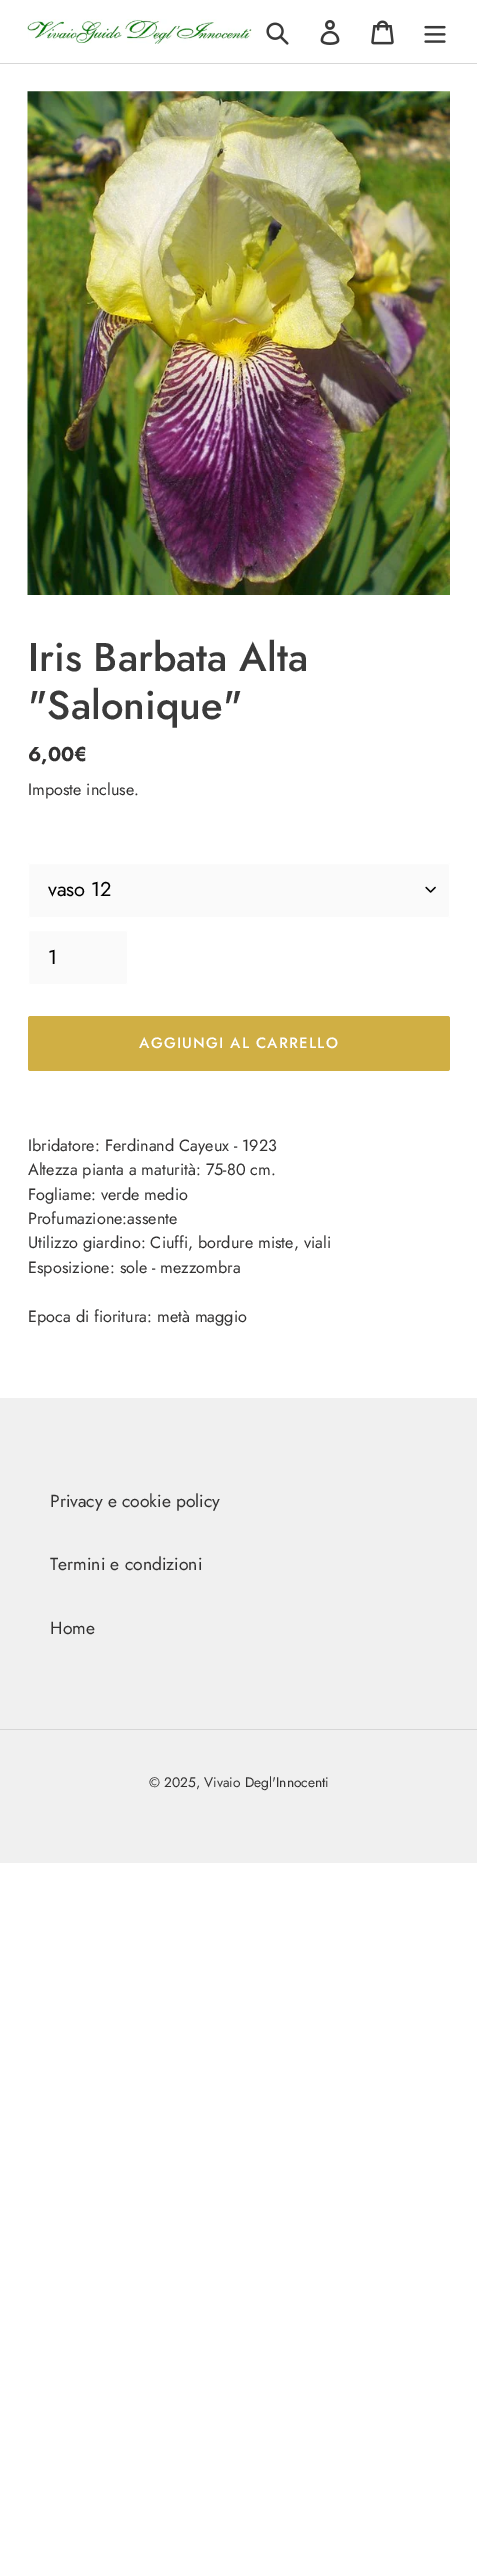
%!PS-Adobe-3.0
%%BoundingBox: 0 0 477 2566
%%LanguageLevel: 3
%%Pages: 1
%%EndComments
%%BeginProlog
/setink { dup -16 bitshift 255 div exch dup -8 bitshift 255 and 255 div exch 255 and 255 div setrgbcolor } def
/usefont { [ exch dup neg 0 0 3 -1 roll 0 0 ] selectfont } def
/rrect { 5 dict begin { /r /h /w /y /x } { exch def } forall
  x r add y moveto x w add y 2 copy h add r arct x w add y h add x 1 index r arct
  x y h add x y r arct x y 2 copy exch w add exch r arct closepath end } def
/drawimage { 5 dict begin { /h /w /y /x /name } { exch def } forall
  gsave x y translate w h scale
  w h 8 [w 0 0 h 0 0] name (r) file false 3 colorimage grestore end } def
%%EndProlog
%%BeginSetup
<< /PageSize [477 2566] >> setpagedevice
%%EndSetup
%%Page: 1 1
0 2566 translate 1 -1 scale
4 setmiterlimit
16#FFFFFF setink
0 0 477 2566 rectfill
16#D7D7D7 setink
0 63 477 1 rectfill
(img1.raw) 27 19 225 25 drawimage
(img2.raw) 266 22 23 23 drawimage
(img3.raw) 320 20 20 25 drawimage
(img4.raw) 371 20 23 25 drawimage
(img5.raw) 424 25 22 18 drawimage
(img6.raw) 27 91 423 504 drawimage
/Jost-Medium 40 usefont
16#3A3A3A setink
28 671 moveto (Iris Barbata Alta) show
28 719 moveto ("Salonique") show
/Jost-Bold 20 usefont
16#333232 setink
28 761 moveto (6,00€) show
/Jost-Regular 16.25 usefont
28 795 moveto (Imposte incluse.) show
16#FAFAFA setink
28 863 422 55 2.5 rrect fill
(img7.raw) 425 886 11 7 drawimage
16#FFFFFF setink
28.5 863.5 421 54 2 rrect stroke
/Jost-Regular 20 usefont
16#000000 setink
48 896 moveto (vaso 12) show
16#FAFAFA setink
28.5 930.5 99 54 2 rrect gsave fill grestore
16#FFFFFF setink
stroke
16#000000 setink
48 964 moveto (1) show
16#D0AF44 setink
28 1016 422 55 2.5 rrect fill
/Jost-Medium 15 usefont
16#FFFFFF setink
139 1048 moveto 1.2 0 (AGGIUNGI AL CARRELLO) ashow
/Jost-Regular 16.25 usefont
16#333232 setink
[
    [(Ibridatore: Ferdinand Cayeux - 1923) 28 1151]
    [(Altezza pianta a maturità: 75-80 cm.) 28 1175]
    [(Fogliame: verde medio) 28 1200]
    [(Profumazione:assente) 28 1224]
    [(Utilizzo giardino: Ciuffi, bordure miste, viali) 28 1248]
    [(Esposizione: sole - mezzombra) 28 1273]
    [(Epoca di fioritura: metà maggio) 28 1322]
] { aload pop moveto show } forall
16#F0F0F0 setink
0 1398 477 465 rectfill
/Jost-Regular 17.5 usefont
16#333232 setink
[
    [(Privacy e cookie policy) 50 1507]
    [(Termini e condizioni) 50 1570]
    [(Home) 50 1634]
] { aload pop moveto show } forall
16#D6D6D6 setink
0 1729 477 1 rectfill
/Jost-Regular 13.75 usefont
16#333232 setink
149 1787 moveto (© 2025, Vivaio Degl'Innocenti) show
showpage
%%EOF
